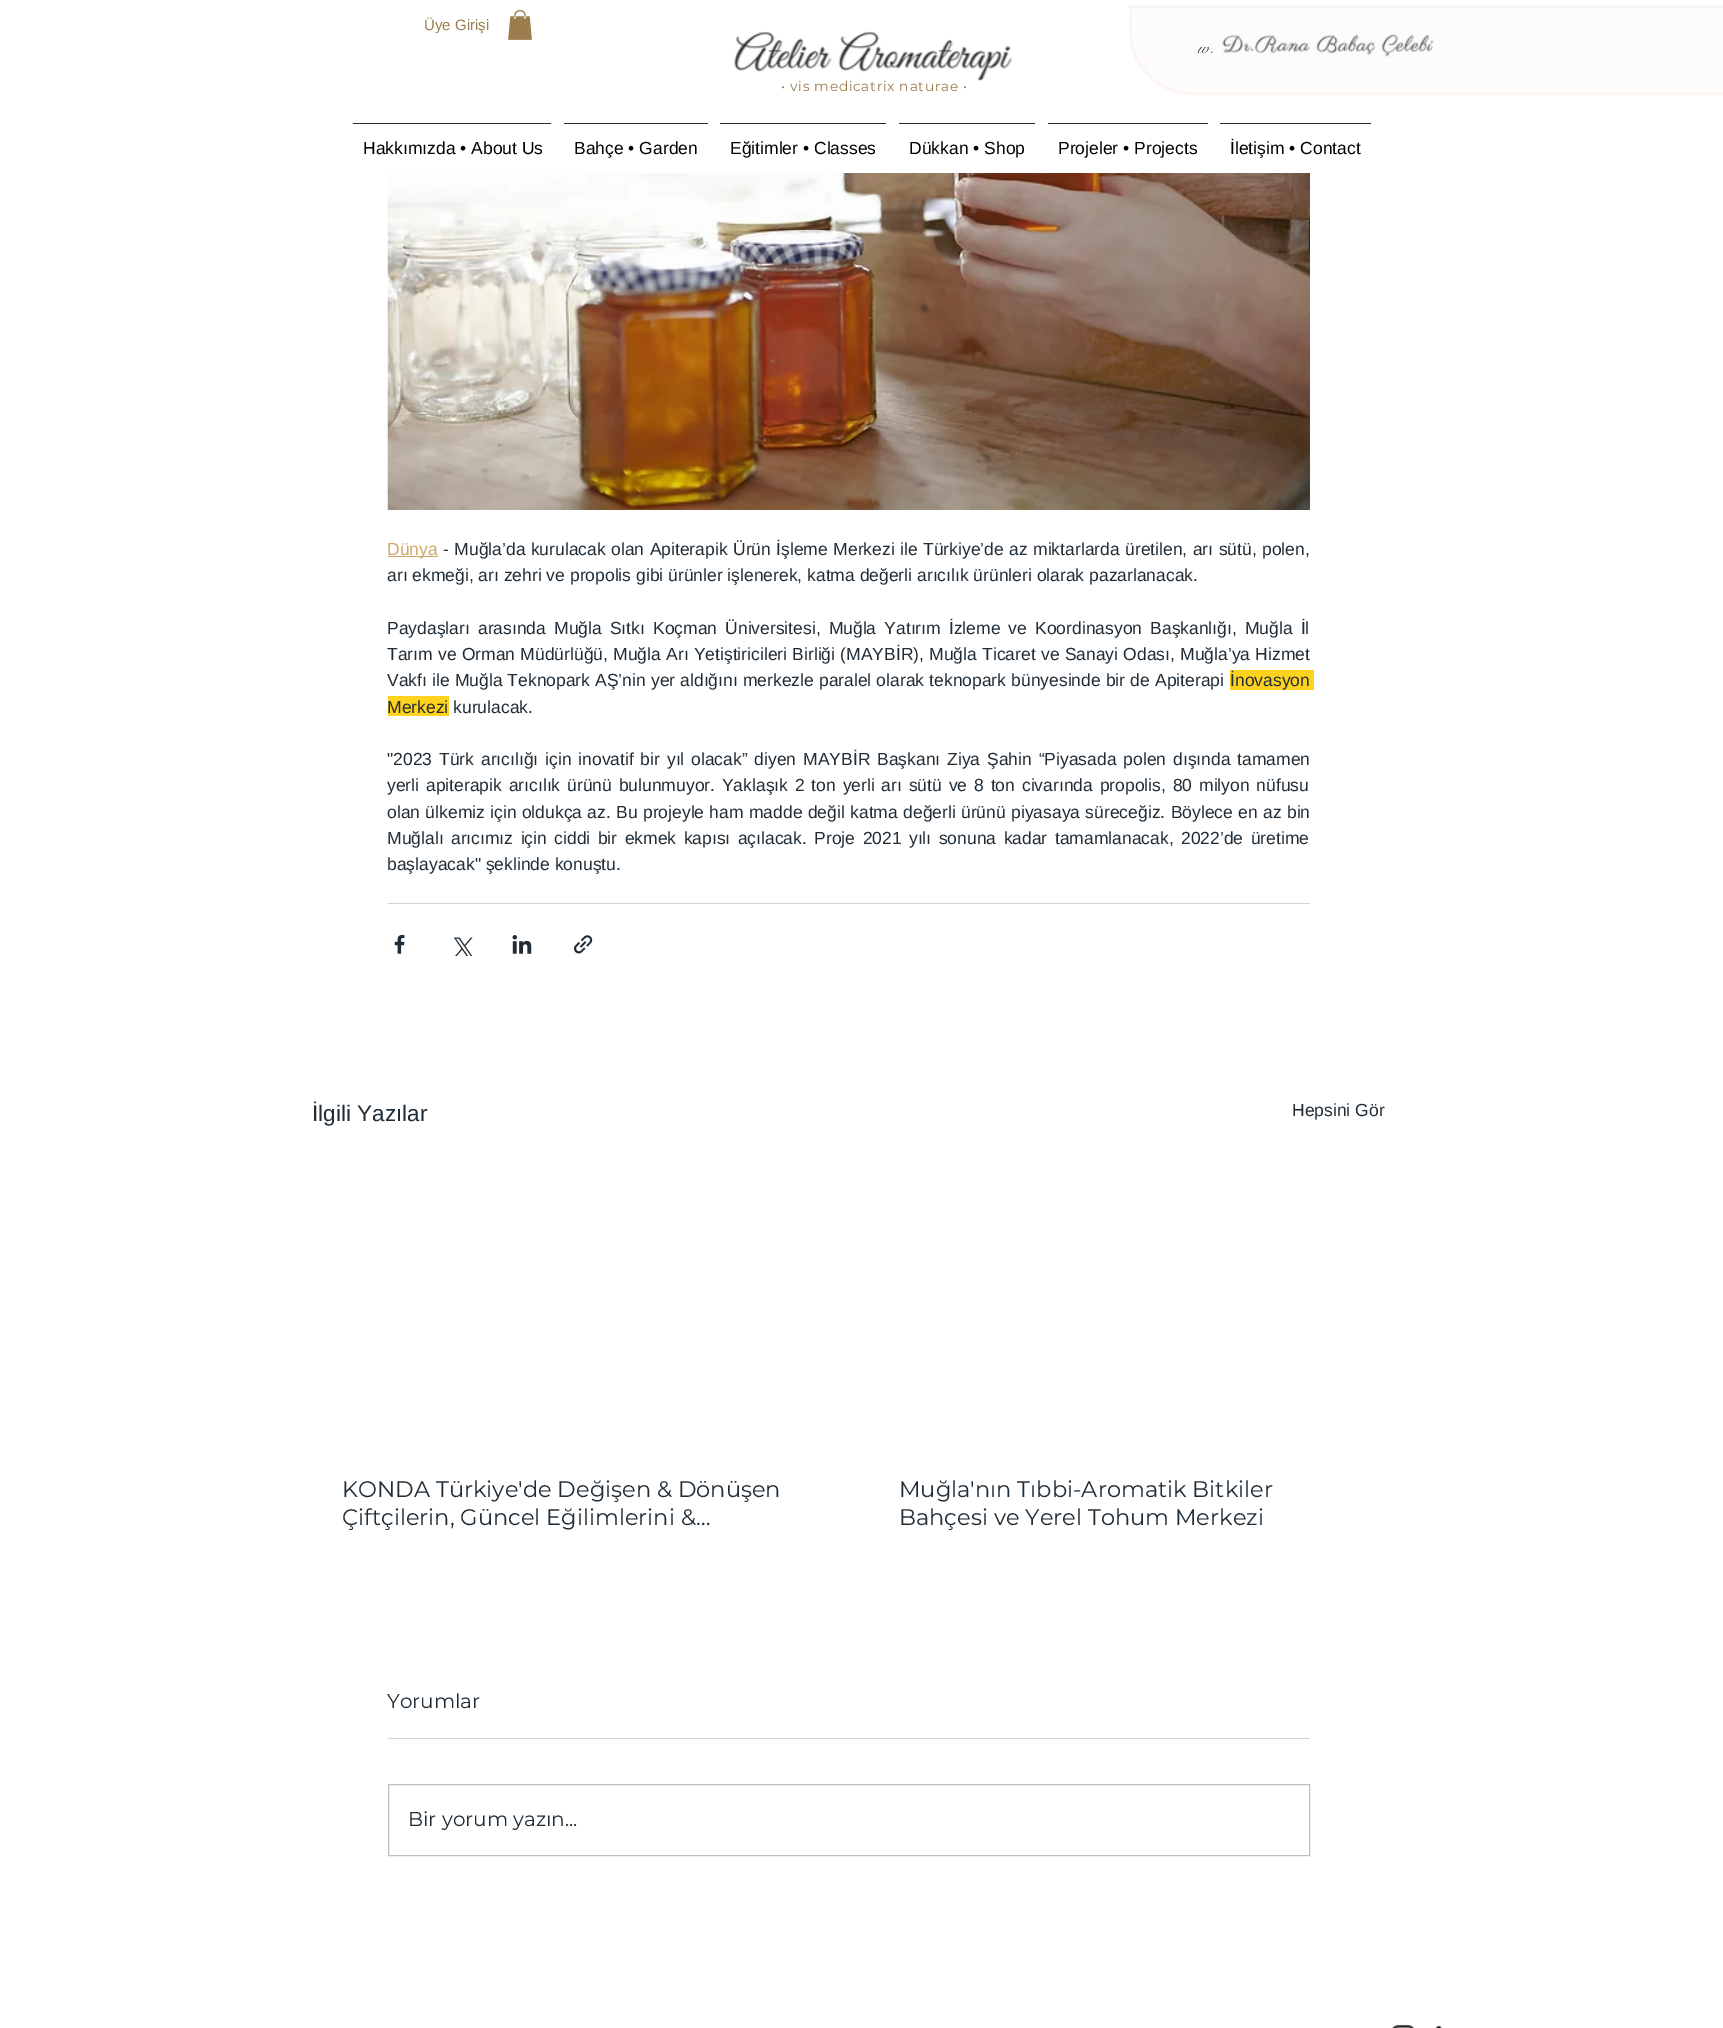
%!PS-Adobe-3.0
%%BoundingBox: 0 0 1723 2028
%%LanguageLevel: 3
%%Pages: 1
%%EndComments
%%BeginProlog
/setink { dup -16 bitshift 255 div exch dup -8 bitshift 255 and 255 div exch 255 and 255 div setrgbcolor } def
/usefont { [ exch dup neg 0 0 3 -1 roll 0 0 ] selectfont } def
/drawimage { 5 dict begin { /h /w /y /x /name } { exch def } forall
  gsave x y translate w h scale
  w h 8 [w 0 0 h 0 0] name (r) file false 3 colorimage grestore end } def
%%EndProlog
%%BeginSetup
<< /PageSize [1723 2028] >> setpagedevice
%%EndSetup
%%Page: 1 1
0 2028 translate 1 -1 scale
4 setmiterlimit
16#FFFFFF setink
0 0 1723 2028 rectfill
/LiberationSans-Regular 15 usefont
16#9D7D4D setink
424 30 moveto (Üye Girişi) show
(img1.raw) 508 10 24 30 drawimage
16#FEFCFB setink
1130.5 6.5 moveto 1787.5 6.5 lineto 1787.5 93.5 lineto 1192 93.5 lineto 1158 93.5 1130.5 66 1130.5 32 curveto closepath gsave fill grestore
16#FBF6F3 setink
3 setlinewidth
stroke
/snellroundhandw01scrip-Regular 17.5 usefont
16#302D2D setink
1198 53 moveto (w.) show
(img2.raw) 1222 34 212 23 drawimage
(img3.raw) 734 31 279 50 drawimage
/Montserrat-Regular 13.75 usefont
16#9D7D4D setink
781 91 moveto 0.7 0 (• vis medicatrix naturae •) ashow
16#202C36 setink
353 123 198 1 rectfill
/LiberationSans-Regular 17.5 usefont
16#000000 setink
363 154 moveto (Hakkımızda • About Us) show
16#202C36 setink
564 123 144 1 rectfill
16#000000 setink
574 154 moveto (Bahçe • Garden) show
16#202C36 setink
720 123 166 1 rectfill
16#000000 setink
730 154 moveto (Eğitimler • Classes) show
16#202C36 setink
899 123 136 1 rectfill
16#000000 setink
909 154 moveto (Dükkan • Shop) show
16#202C36 setink
1048 123 160 1 rectfill
16#000000 setink
1058 154 moveto (Projeler • Projects) show
16#202C36 setink
1220 123 151 1 rectfill
16#000000 setink
1230 154 moveto (İletişim • Contact) show
(img4.raw) 387 173 923 337 drawimage
16#D1A666 setink
388 556 50 1 rectfill
387 555 moveto (Dünya) show
16#202C36 setink
443 555 moveto 0.6 0 32 (- Muğla’da kurulacak olan Apiterapik Ürün İşleme Merkezi ile Türkiye’de az miktarlarda üretilen, arı sütü, polen,) widthshow
387 581 moveto (arı ekmeği, arı zehri ve propolis gibi ürünler işlenerek, katma değerli arıcılık ürünleri olarak pazarlanacak.) show
387 634 moveto 3.25 0 32 (Paydaşları arasında Muğla Sıtkı Koçman Üniversitesi, Muğla Yatırım İzleme ve Koordinasyon Başkanlığı, Muğla İl) widthshow
387 660 moveto 0.4 0 32 (Tarım ve Orman Müdürlüğü, Muğla Arı Yetiştiricileri Birliği \(MAYBİR\), Muğla Ticaret ve Sanayi Odası, Muğla’ya Hizmet) widthshow
387 686 moveto 0.25 0 32 (Vakfı ile Muğla Teknopark AŞ’nin yer aldığını merkezle paralel olarak teknopark bünyesinde bir de Apiterapi) widthshow
16#FFD31D setink
1230 670 84 20 rectfill
16#202C36 setink
1230 686 moveto (İnovasyon) show
16#FFD31D setink
388 696 61 20 rectfill
16#202C36 setink
387 713 moveto (Merkezi kurulacak.) show
387 765 moveto 2 0 32 ("2023 Türk arıcılığı için inovatif bir yıl olacak” diyen MAYBİR Başkanı Ziya Şahin “Piyasada polen dışında tamamen) widthshow
387 791 moveto 2 0 32 (yerli apiterapik arıcılık ürünü bulunmuyor. Yaklaşık 2 ton yerli arı sütü ve 8 ton civarında propolis, 80 milyon nüfusu) widthshow
387 818 moveto 0.5 0 32 (olan ülkemiz için oldukça az. Bu projeyle ham madde değil katma değerli ürünü piyasaya süreceğiz. Böylece en az bin) widthshow
387 844 moveto 2.6 0 32 (Muğlalı arıcımız için ciddi bir ekmek kapısı açılacak. Proje 2021 yılı sonuna kadar tamamlanacak, 2022’de üretime) widthshow
387 870 moveto (başlayacak" şeklinde konuştu.) show
16#D2D5D7 setink
388 903 922 1 rectfill
(img5.raw) 394 935 11 19 drawimage
(img6.raw) 453 937 20 19 drawimage
(img7.raw) 512 935 20 19 drawimage
(img8.raw) 574 935 19 19 drawimage
/LiberationSans-Regular 22.5 usefont
16#202C36 setink
312 1121 moveto (İlgili Yazılar) show
/LiberationSans-Regular 17.5 usefont
1292 1116 moveto (Hepsini Gör) show
/Montserrat-Regular 22.5 usefont
[
    [(KONDA Türkiye'de Değişen & Dönüşen) 342 1497]
    [(Çiftçilerin, Güncel Eğilimlerini &…) 342 1525]
    [(Muğla'nın Tıbbi-Aromatik Bitkiler) 899 1497]
    [(Bahçesi ve Yerel Tohum Merkezi) 899 1525]
] { aload pop moveto show } forall
/Montserrat-Regular 20 usefont
387 1708 moveto (Yorumlar) show
16#D2D5D7 setink
388 1738 922 1 rectfill
16#C1C0C0 setink
1 setlinewidth
388.5 1784.5 921 71 rectstroke
16#202C36 setink
408 1826 moveto (Bir yorum yazın...) show
(img9.raw) 1392 2024 22 4 drawimage
(img10.raw) 1435 2025 7 3 drawimage
showpage
%%EOF
